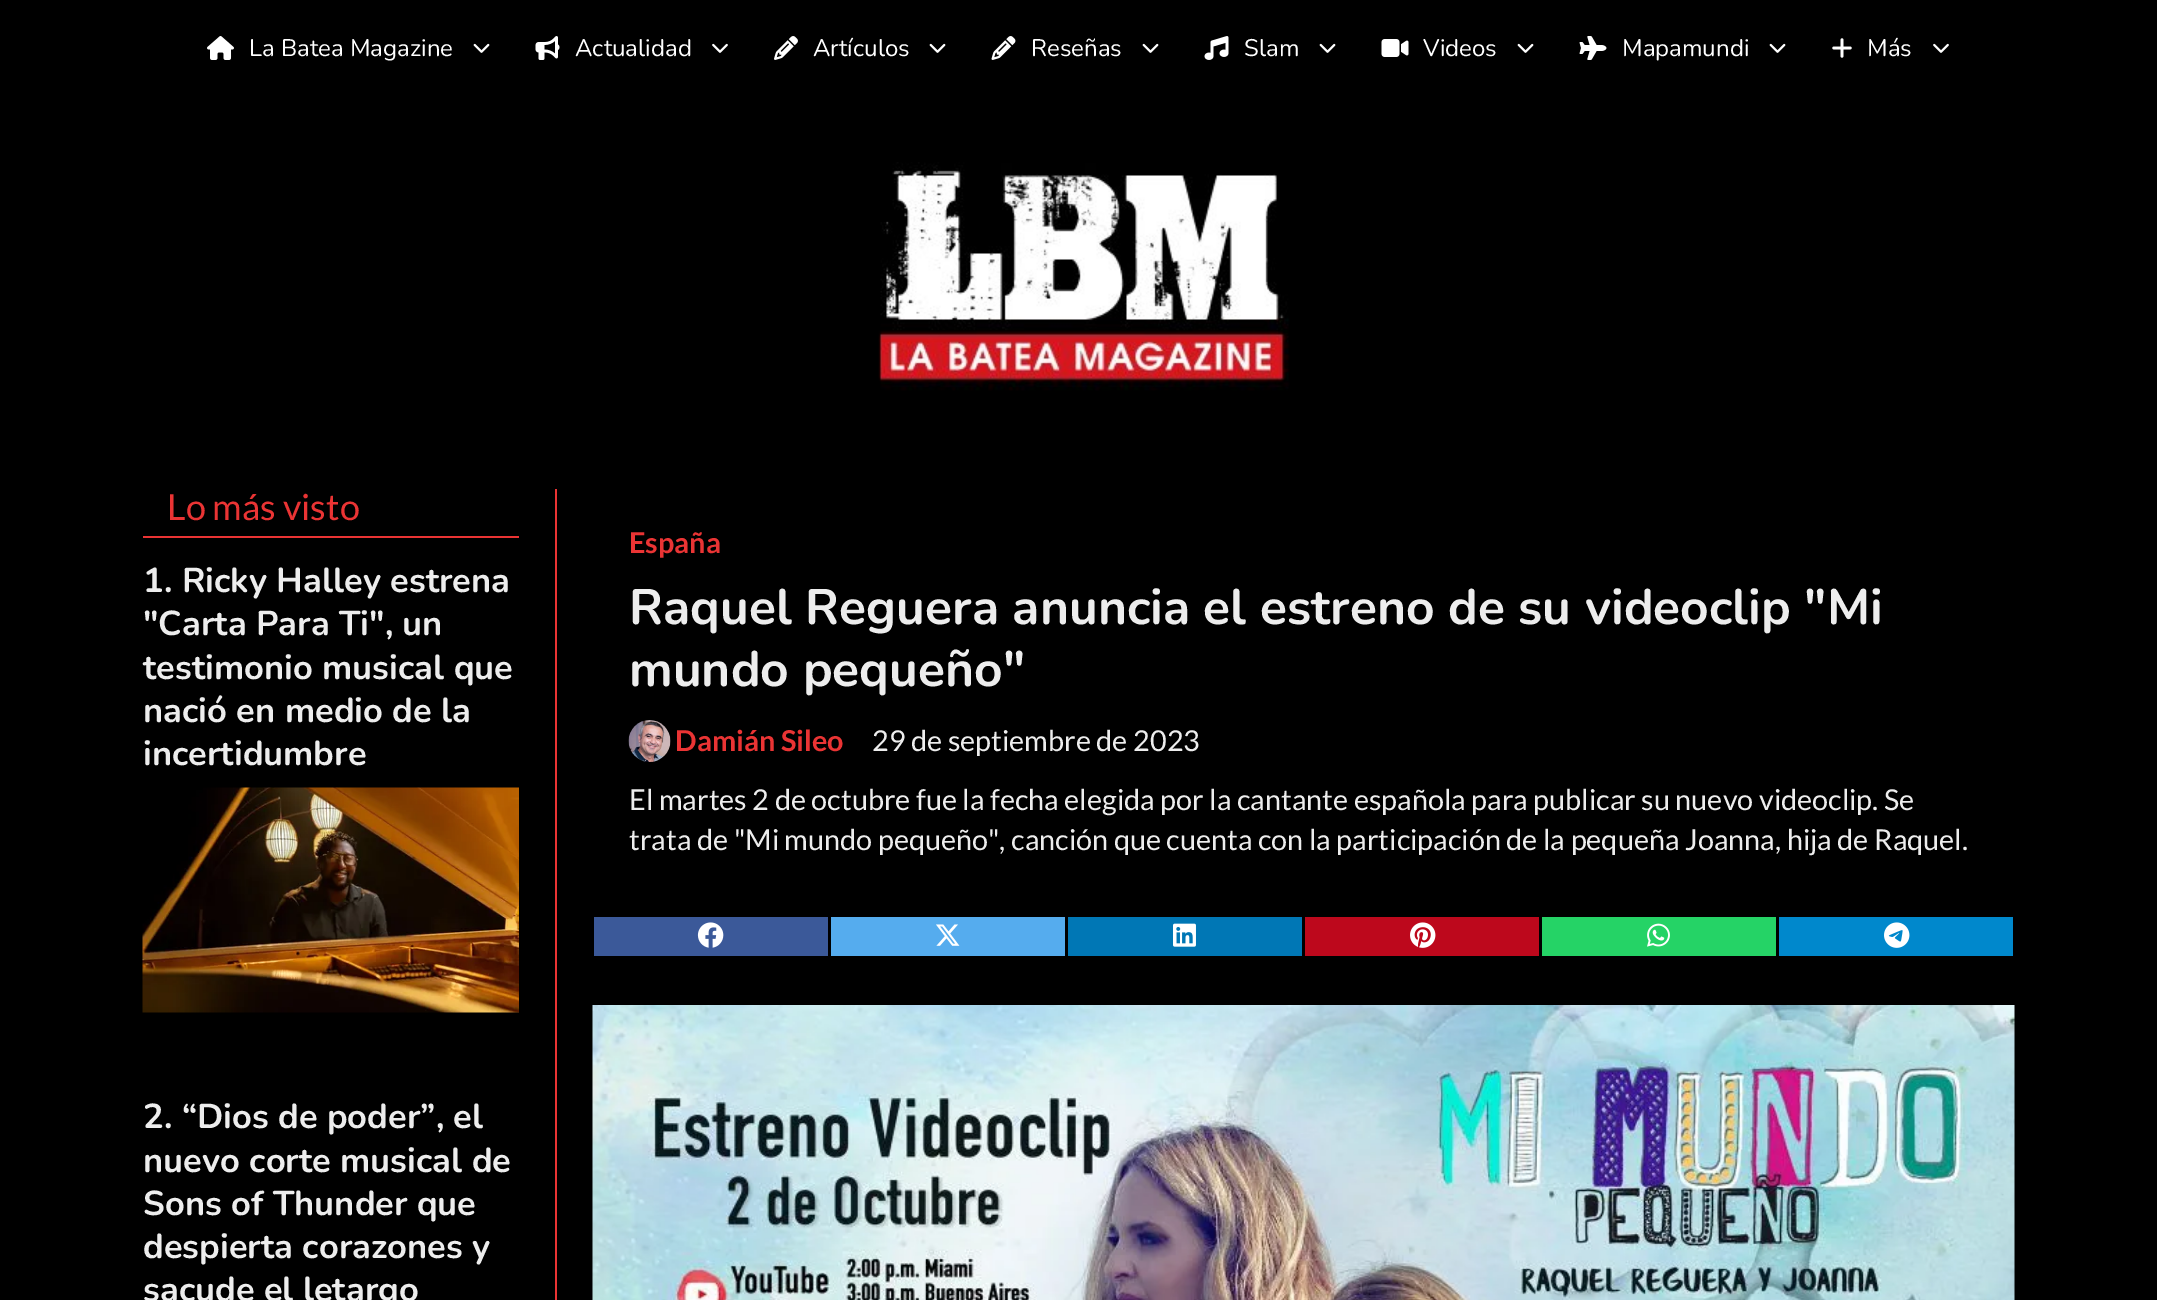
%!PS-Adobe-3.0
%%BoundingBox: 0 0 2157 1300
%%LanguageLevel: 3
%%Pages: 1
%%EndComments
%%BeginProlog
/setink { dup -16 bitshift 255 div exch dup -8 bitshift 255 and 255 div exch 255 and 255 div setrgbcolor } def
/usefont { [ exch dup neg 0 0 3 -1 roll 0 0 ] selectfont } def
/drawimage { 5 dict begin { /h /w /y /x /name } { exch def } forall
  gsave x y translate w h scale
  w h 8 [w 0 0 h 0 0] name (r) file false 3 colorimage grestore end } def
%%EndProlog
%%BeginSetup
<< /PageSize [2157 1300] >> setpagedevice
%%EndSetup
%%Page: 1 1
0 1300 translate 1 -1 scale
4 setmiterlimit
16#000000 setink
0 0 2157 1300 rectfill
(img1.raw) 207 36 27 24 drawimage
/Nunito-Regular 24 usefont
16#FFFFFF setink
249 56 moveto (La Batea Magazine) show
(img2.raw) 473 43 17 10 drawimage
(img3.raw) 535 36 25 24 drawimage
575 56 moveto (Actualidad) show
(img4.raw) 712 43 16 10 drawimage
(img5.raw) 774 36 24 24 drawimage
813 56 moveto (Artículos) show
(img2.raw) 929 43 17 10 drawimage
(img6.raw) 991 36 25 24 drawimage
1031 56 moveto (Reseñas) show
(img2.raw) 1142 43 17 10 drawimage
(img7.raw) 1204 36 25 24 drawimage
1244 56 moveto (Slam) show
(img2.raw) 1319 43 17 10 drawimage
(img8.raw) 1381 39 28 18 drawimage
1423 56 moveto (Videos) show
(img2.raw) 1517 43 17 10 drawimage
(img9.raw) 1579 36 28 24 drawimage
1622 56 moveto (Mapamundi) show
(img2.raw) 1769 43 17 10 drawimage
(img10.raw) 1832 38 20 20 drawimage
1867 56 moveto (Más) show
(img4.raw) 1933 43 16 10 drawimage
(img11.raw) 878 162 412 229 drawimage
16#EA3434 setink
555 489 2 811 rectfill
143 536 376 2 rectfill
/Lato-Regular 36 usefont
167 520 moveto (Lo más visto) show
/Nunito-Bold 34.5 usefont
16#EDEDED setink
[
    [(1. Ricky Halley estrena) 143 592]
    [("Carta Para Ti", un) 143 635]
    [(testimonio musical que) 143 679]
    [(nació en medio de la) 143 722]
    [(incertidumbre) 143 765]
] { aload pop moveto show } forall
(img12.raw) 142 787 377 226 drawimage
[
    [(2. “Dios de poder”, el) 143 1128]
    [(nuevo corte musical de) 143 1172]
    [(Sons of Thunder que) 143 1215]
    [(despierta corazones y) 143 1258]
    [(sacude el letargo) 143 1301]
] { aload pop moveto show } forall
/Lato-Bold 28.8 usefont
16#EA3434 setink
629 553 moveto (España) show
/Nunito-Bold 49.75 usefont
16#EDEDED setink
629 624 moveto (Raquel Reguera anuncia el estreno de su videoclip "Mi) show
629 686 moveto (mundo pequeño") show
(img13.raw) 628 720 43 42 drawimage
/Lato-Bold 28.8 usefont
16#EA3434 setink
675 751 moveto (Damián Sileo) show
/Lato-Regular 28.8 usefont
16#EDEDED setink
[
    [(29 de septiembre de 2023) 872 751]
    [(El martes 2 de octubre fue la fecha elegida por la cantante española para publicar su nuevo videoclip. Se) 629 810]
    [(trata de "Mi mundo pequeño", canción que cuenta con la participación de la pequeña Joanna, hija de Raquel.) 629 850]
] { aload pop moveto show } forall
16#3B5999 setink
594 917 234 39 rectfill
(img14.raw) 697 922 27 26 drawimage
16#55ACEE setink
831 917 234 39 rectfill
(img15.raw) 936 924 24 22 drawimage
16#0077B5 setink
1068 917 234 39 rectfill
(img16.raw) 1173 923 23 24 drawimage
16#BD081C setink
1305 917 234 39 rectfill
(img17.raw) 1410 922 26 26 drawimage
16#25D366 setink
1542 917 234 39 rectfill
(img18.raw) 1647 923 23 24 drawimage
16#0088CC setink
1779 917 234 39 rectfill
(img19.raw) 1884 922 26 26 drawimage
(img20.raw) 592 1005 1423 295 drawimage
showpage
%%EOF
